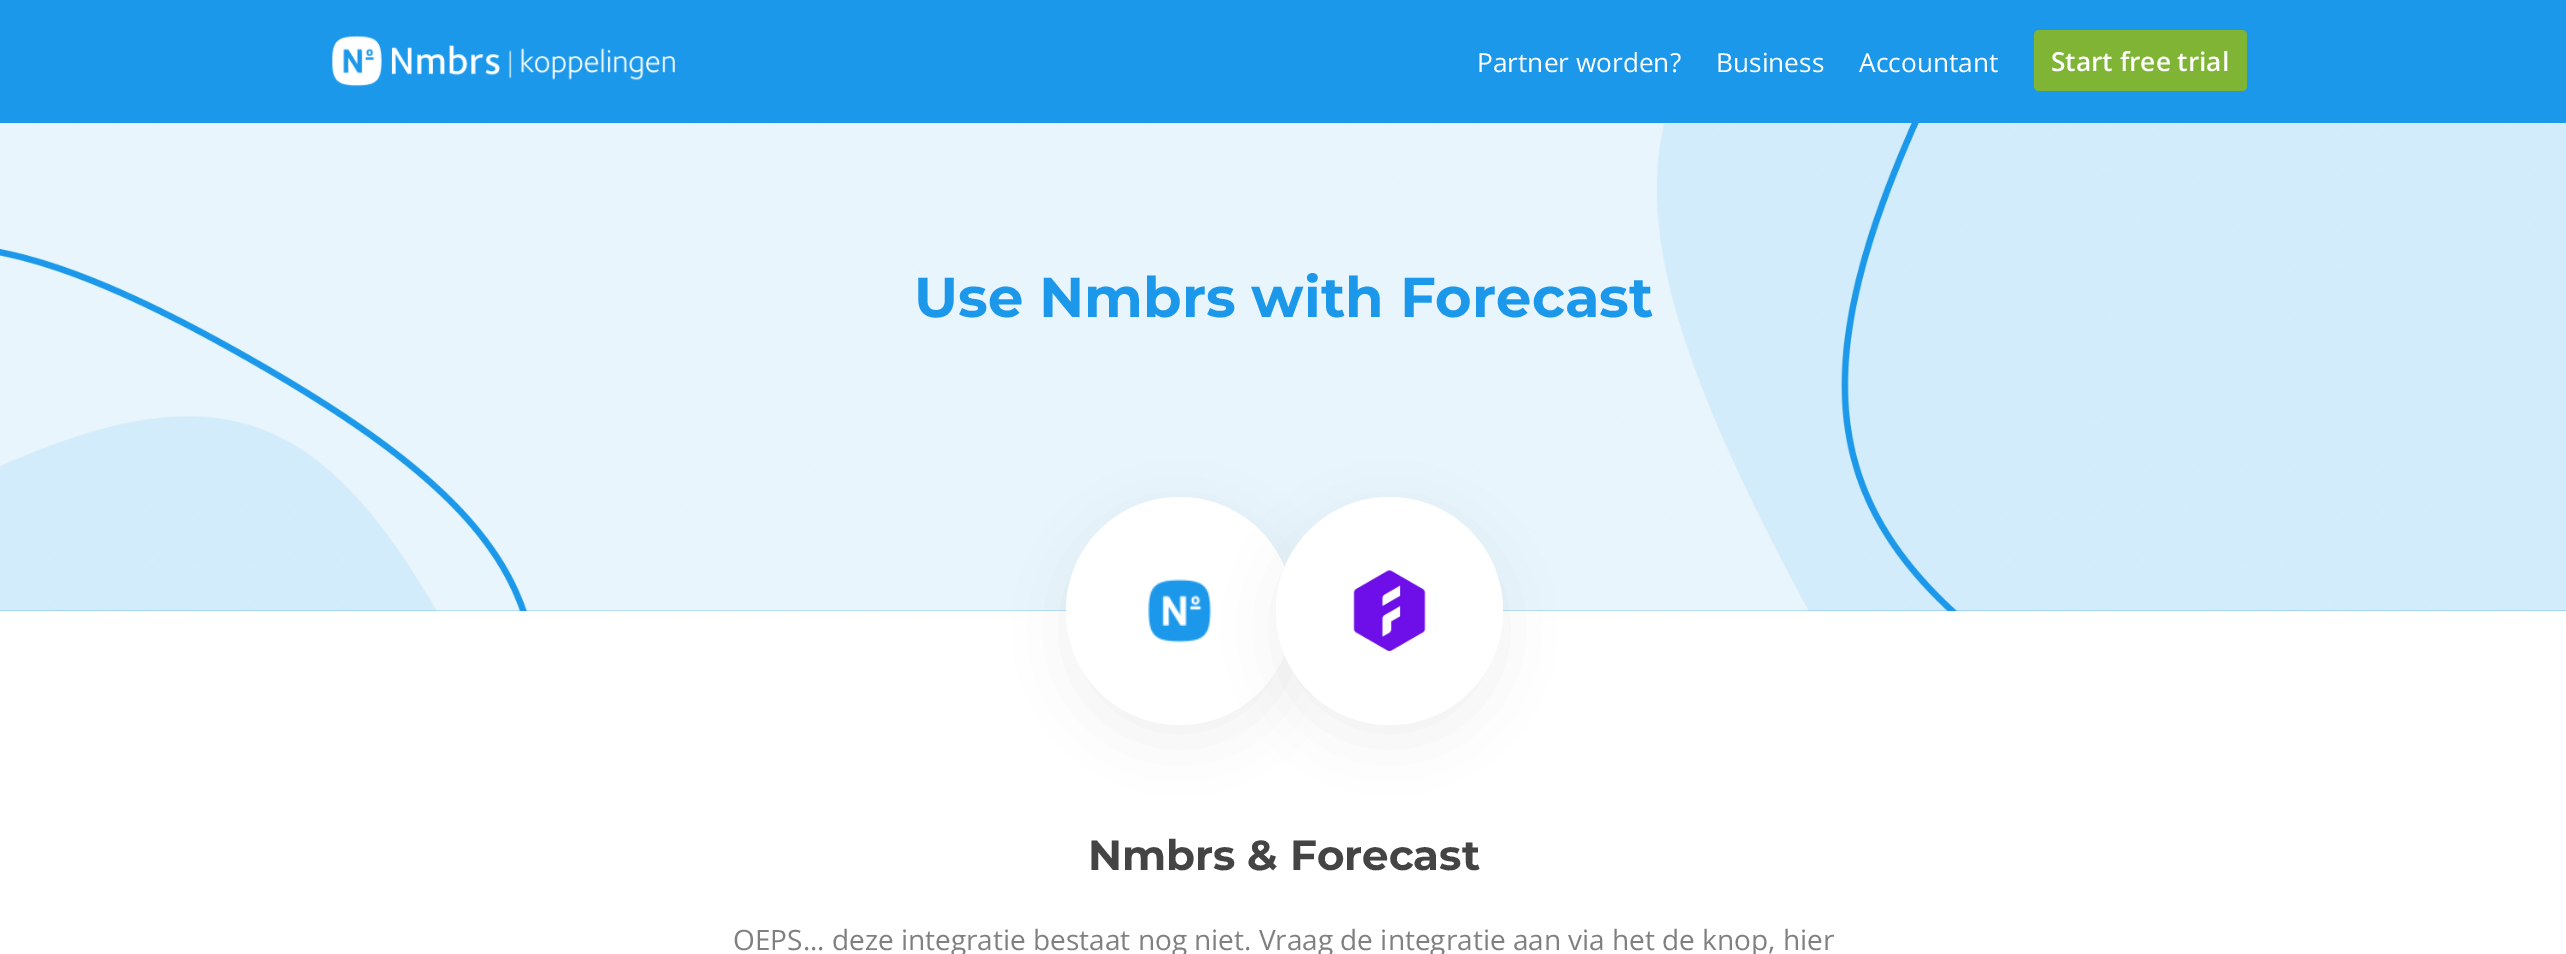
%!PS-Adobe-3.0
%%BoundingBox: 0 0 2566 954
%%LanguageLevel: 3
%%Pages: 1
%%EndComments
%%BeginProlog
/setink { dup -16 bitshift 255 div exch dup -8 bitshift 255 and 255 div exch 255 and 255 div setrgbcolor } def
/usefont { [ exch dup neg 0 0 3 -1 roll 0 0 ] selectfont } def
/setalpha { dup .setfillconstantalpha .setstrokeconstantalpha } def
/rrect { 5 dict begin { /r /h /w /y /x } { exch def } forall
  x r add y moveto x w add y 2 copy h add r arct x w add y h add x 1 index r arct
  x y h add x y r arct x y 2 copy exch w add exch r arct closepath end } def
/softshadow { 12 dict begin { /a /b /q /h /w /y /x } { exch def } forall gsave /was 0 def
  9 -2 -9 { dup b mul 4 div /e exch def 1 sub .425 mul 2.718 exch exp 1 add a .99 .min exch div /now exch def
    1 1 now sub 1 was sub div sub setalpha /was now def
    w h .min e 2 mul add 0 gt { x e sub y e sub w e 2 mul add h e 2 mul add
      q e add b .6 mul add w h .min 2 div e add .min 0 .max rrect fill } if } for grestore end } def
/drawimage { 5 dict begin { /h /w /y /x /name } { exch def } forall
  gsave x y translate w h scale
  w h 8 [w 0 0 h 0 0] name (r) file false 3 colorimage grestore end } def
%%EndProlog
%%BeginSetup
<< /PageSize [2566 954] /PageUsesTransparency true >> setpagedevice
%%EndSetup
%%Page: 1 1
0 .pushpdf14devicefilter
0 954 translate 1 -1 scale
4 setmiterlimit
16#FFFFFF setink
0 0 2566 954 rectfill
(img1.raw) 0 123 2566 488 drawimage
16#1C98EB setink
0 0 2566 123 rectfill
(img2.raw) 331 35 344 52 drawimage
/OpenSans-Regular 26.25 usefont
16#FFFFFF setink
[
    [(Partner worden?) 1477 72]
    [(Business) 1716 72]
    [(Accountant) 1859 72]
] { aload pop moveto show } forall
16#7FB435 setink
2034 30 213 61 5 rrect fill
/OpenSans-SemiBold 26.25 usefont
16#FFFFFF setink
2051 71 moveto (Start free trial) show
/Montserrat-Bold 56 usefont
16#1C98EB setink
914 317 moveto (Use Nmbrs with Forecast) show
16#000000 setink
1066 515 227 227 113.5 31.5 0.05 softshadow
16#FFFFFF setink
1066 497 227 228 113.5 rrect fill
(img3.raw) 1147 579 65 64 drawimage
16#000000 setink
1276 515 227 227 113.5 31.5 0.05 softshadow
16#FFFFFF setink
1276 497 227 228 113.5 rrect fill
(img4.raw) 1353 569 73 82 drawimage
/Montserrat-Bold 42 usefont
16#444444 setink
1088 870 moveto (Nmbrs & Forecast) show
/OpenSans-Regular 28 usefont
16#808080 setink
733 950 moveto (OEPS... deze integratie bestaat nog niet. Vraag de integratie aan via het de knop, hier) show
.poppdf14devicefilter showpage
%%EOF
